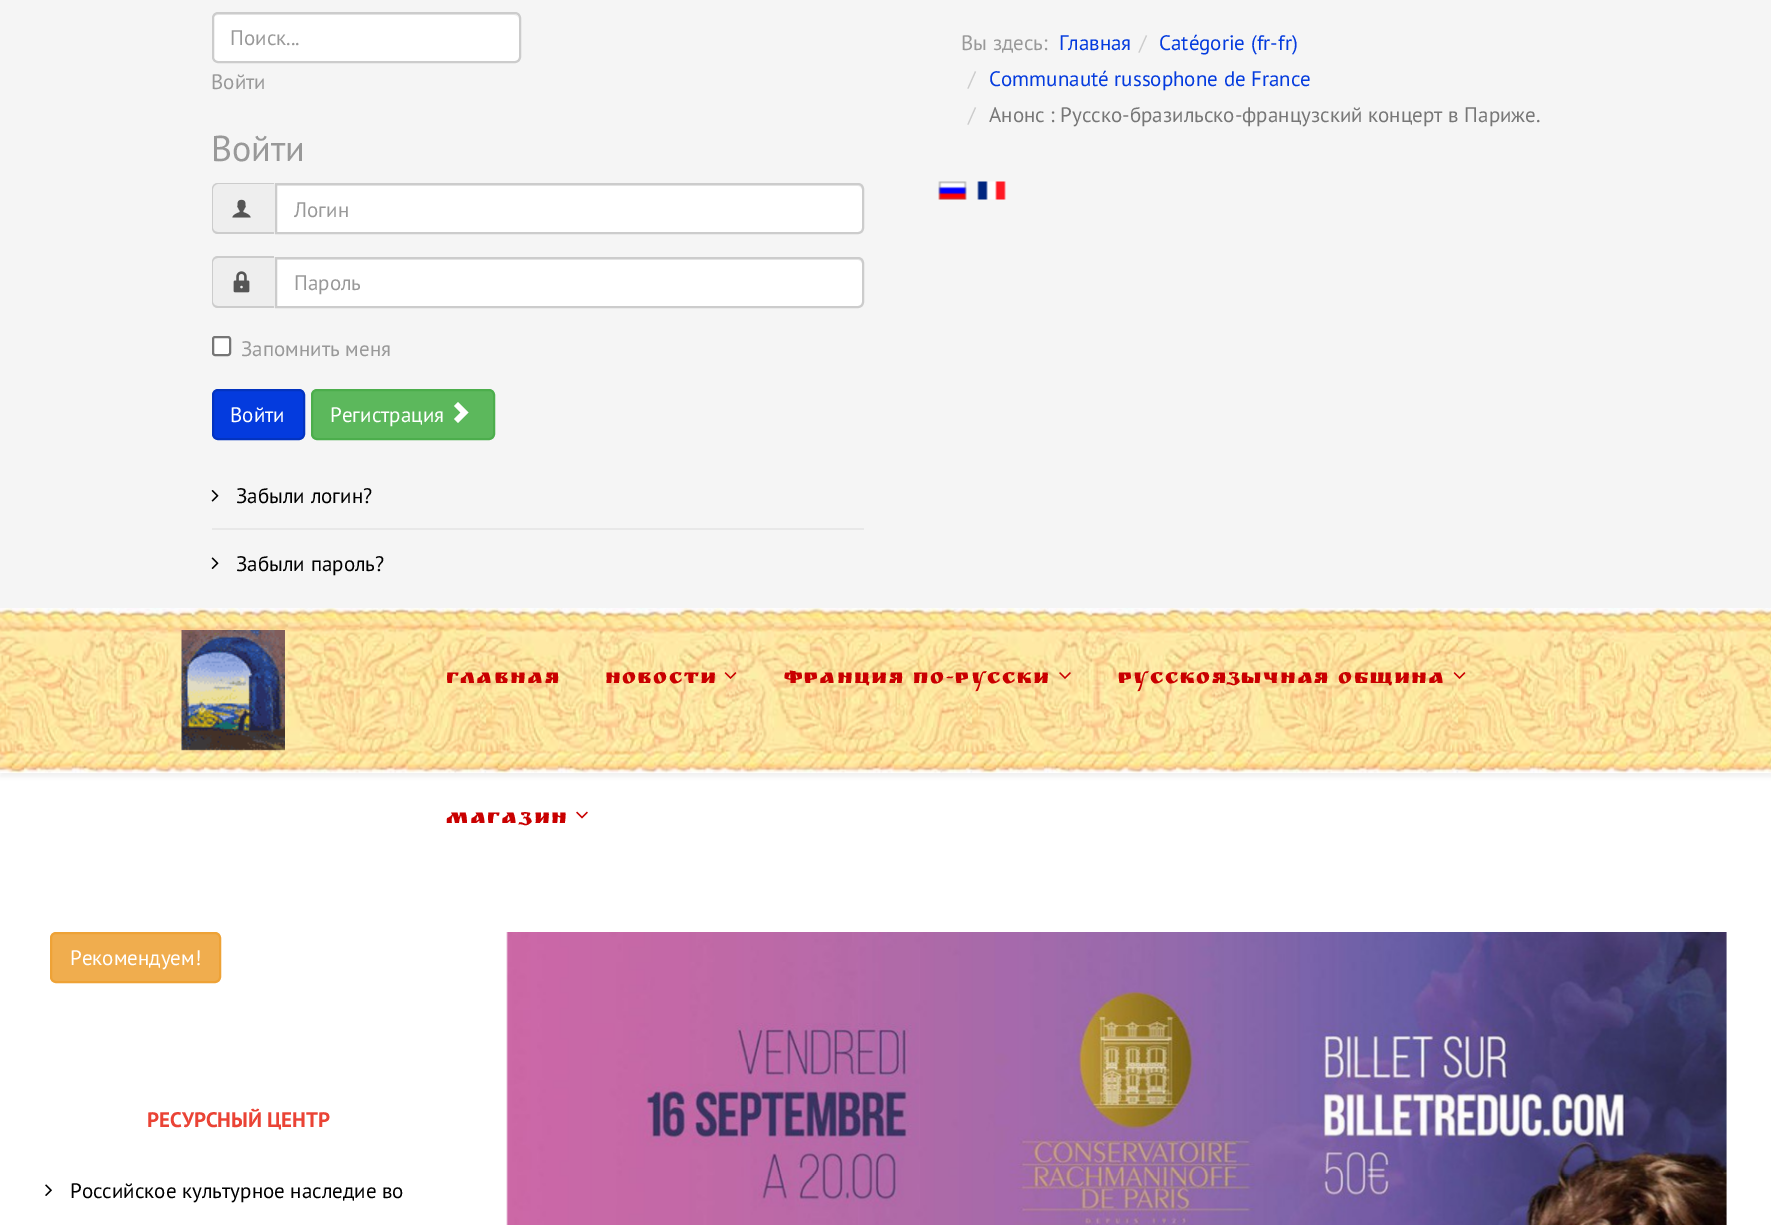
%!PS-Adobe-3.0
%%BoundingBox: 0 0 1771 1225
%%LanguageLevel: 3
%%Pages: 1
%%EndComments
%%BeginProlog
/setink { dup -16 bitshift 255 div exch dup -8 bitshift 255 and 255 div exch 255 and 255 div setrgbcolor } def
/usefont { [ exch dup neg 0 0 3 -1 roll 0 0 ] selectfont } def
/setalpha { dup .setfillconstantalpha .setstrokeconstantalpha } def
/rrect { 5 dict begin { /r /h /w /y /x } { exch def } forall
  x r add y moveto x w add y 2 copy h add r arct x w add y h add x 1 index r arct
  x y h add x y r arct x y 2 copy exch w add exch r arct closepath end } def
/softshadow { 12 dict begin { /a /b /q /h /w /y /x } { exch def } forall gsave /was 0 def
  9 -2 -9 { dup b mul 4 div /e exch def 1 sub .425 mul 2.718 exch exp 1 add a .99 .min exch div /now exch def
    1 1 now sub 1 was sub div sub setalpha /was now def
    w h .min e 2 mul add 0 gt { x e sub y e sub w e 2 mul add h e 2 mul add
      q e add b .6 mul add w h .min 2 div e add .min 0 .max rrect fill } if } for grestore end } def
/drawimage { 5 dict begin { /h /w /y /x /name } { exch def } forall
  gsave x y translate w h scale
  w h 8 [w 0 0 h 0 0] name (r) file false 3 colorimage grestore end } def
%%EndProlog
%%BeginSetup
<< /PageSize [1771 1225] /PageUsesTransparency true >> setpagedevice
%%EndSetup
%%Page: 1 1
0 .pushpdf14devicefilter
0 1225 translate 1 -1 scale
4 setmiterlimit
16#FFFFFF setink
0 0 1771 1225 rectfill
16#F5F5F5 setink
0 0 1771 608 rectfill
16#FFFFFF setink
212 12 309 51 6 rrect fill
16#ECECEC setink
218 15 moveto 514 15 lineto 517 15 519 17 519 20 curveto 519 17 517 14 514 14 curveto 218 14 lineto 215 14 213 17 213 20 curveto 213 17 215 15 218 15 curveto closepath fill
16#CCCCCC setink
2 setlinewidth
213 13 307 49 5 rrect stroke
/PTSans-Regular 21 usefont
16#999999 setink
230 45 moveto (Поиск...) show
211 89 moveto (Войти) show
/PTSans-Regular 36 usefont
211 161 moveto (Войти) show
16#EEEEEE setink
218 183 moveto 275 183 lineto 275 234 lineto 218 234 lineto 214.5 234 212 231.5 212 228 curveto 212 189 lineto 212 185.5 214.5 183 218 183 curveto closepath fill
16#CCCCCC setink
218 183 moveto 274 183 lineto 274 234 lineto 218 234 lineto 214 234 212 231 212 228 curveto 212 189 lineto 212 186 214 183 218 183 curveto closepath 218 184 moveto 274 184 lineto 274 232 lineto 218 232 lineto 215 232 213 230 213 228 curveto 213 189 lineto 213 187 215 184 218 184 curveto closepath eofill
(img1.raw) 232 199 19 19 drawimage
16#FFFFFF setink
275 183 moveto 858 183 lineto 861.5 183 864 185.5 864 189 curveto 864 228 lineto 864 231.5 861.5 234 858 234 curveto 275 234 lineto closepath fill
16#ECECEC setink
276 186 moveto 858 186 lineto 860 186 862 188 862 190 curveto 862 231 lineto 863 230 863 229 863 228 curveto 863 190 lineto 863 187 861 185 858 185 curveto 276 185 lineto closepath fill
16#CCCCCC setink
276 184 moveto 858 184 lineto 861 184 863 186 863 189 curveto 863 228 lineto 863 231 861 233 858 233 curveto 276 233 lineto closepath stroke
/PTSans-Regular 21 usefont
16#999999 setink
294 217 moveto (Логин) show
16#EEEEEE setink
218 257 moveto 275 257 lineto 275 308 lineto 218 308 lineto 214.5 308 212 305.5 212 302 curveto 212 263 lineto 212 259.5 214.5 257 218 257 curveto closepath fill
16#CCCCCC setink
218 256 moveto 274 256 lineto 274 308 lineto 218 308 lineto 214 308 212 305 212 302 curveto 212 262 lineto 212 259 214 256 218 256 curveto closepath 218 258 moveto 274 258 lineto 274 306 lineto 218 306 lineto 215 306 213 304 213 302 curveto 213 262 lineto 213 260 215 258 218 258 curveto closepath eofill
(img2.raw) 233 271 17 22 drawimage
16#FFFFFF setink
275 257 moveto 858 257 lineto 861.5 257 864 259.5 864 263 curveto 864 302 lineto 864 305.5 861.5 308 858 308 curveto 275 308 lineto closepath fill
16#ECECEC setink
276 260 moveto 858 260 lineto 860 260 862 262 862 264 curveto 862 304 lineto 863 303 863 302 863 301 curveto 863 263 lineto 863 260 861 258 858 258 curveto 276 258 lineto closepath fill
16#CCCCCC setink
276 258 moveto 858 258 lineto 861 258 863 260 863 263 curveto 863 302 lineto 863 305 861 307 858 307 curveto 276 307 lineto closepath stroke
16#999999 setink
294 290 moveto (Пароль) show
16#FFFFFF setink
213 337 17 18 2 rrect gsave fill grestore
16#767676 setink
stroke
16#999999 setink
241 356 moveto (Запомнить меня) show
16#043BDE setink
213 390 91 49 5 rrect gsave fill grestore
16#0333C0 setink
stroke
16#FFFFFF setink
230 422 moveto (Войти) show
16#5CB85C setink
312 390 182 49 5 rrect gsave fill grestore
16#4CAE4C setink
stroke
16#FFFFFF setink
330 422 moveto (Регистрация) show
458 402 moveto 468.5 412.5 lineto 458 423 lineto 454 419 lineto 460.5 412.5 lineto 454 406 lineto closepath fill
16#E8E8E8 setink
212 528 652 2 rectfill
(img3.raw) 211 490 8 12 drawimage
16#000000 setink
236 503 moveto (Забыли логин?) show
(img4.raw) 211 557 8 12 drawimage
236 571 moveto (Забыли пароль?) show
16#999999 setink
961 50 moveto (Вы здесь:) show
16#043BDE setink
1059 50 moveto (Главная) show
16#CCCCCC setink
1139 50 moveto (/) show
16#043BDE setink
1159 50 moveto (Catégorie \(fr-fr\)) show
16#CCCCCC setink
968 86 moveto (/) show
16#043BDE setink
989 86 moveto (Communauté russophone de France) show
16#CCCCCC setink
968 122 moveto (/) show
16#777777 setink
989 122 moveto (Анонс : Русско-бразильско-французский концерт в Париже.) show
(img5.raw) 938 181 29 19 drawimage
(img6.raw) 977 181 29 19 drawimage
16#000000 setink
0 612 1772 165 0 2 0.05 softshadow
16#FFFFFF setink
0 772 1771 1 rectfill
(img7.raw) 0 608 1771 165 drawimage
(img8.raw) 181 630 104 121 drawimage
/RuslanDisplay-Regular 21 usefont
16#C90000 setink
446 683 moveto 1.5 0 (ГЛАВНАЯ) ashow
605 683 moveto 1.5 0 (НОВОСТИ) ashow
(img9.raw) 724 672 13 7 drawimage
784 683 moveto 1.5 0 (ФРАНЦИЯ ПО-РУССКИ) ashow
(img10.raw) 1059 672 12 7 drawimage
1118 683 moveto 1.5 0 (РУССКОЯЗЫЧНАЯ ОБЩИНА) ashow
(img11.raw) 1453 672 13 7 drawimage
446 823 moveto 1.5 0 (МАГАЗИН) ashow
(img12.raw) 576 811 12 8 drawimage
16#F0AD4E setink
51 933 169 49 5 rrect gsave fill grestore
16#EEA236 setink
stroke
/PTSans-Regular 21 usefont
16#FFFFFF setink
70 965 moveto (Рекомендуем!) show
/PTSans-Bold 21 usefont
16#EA4335 setink
147 1127 moveto (РЕСУРСНЫЙ ЦЕНТР) show
(img13.raw) 45 1184 7 12 drawimage
/PTSans-Regular 21 usefont
16#000000 setink
70 1198 moveto (Российское культурное наследие во) show
(img14.raw) 506 932 1221 293 drawimage
.poppdf14devicefilter showpage
%%EOF
